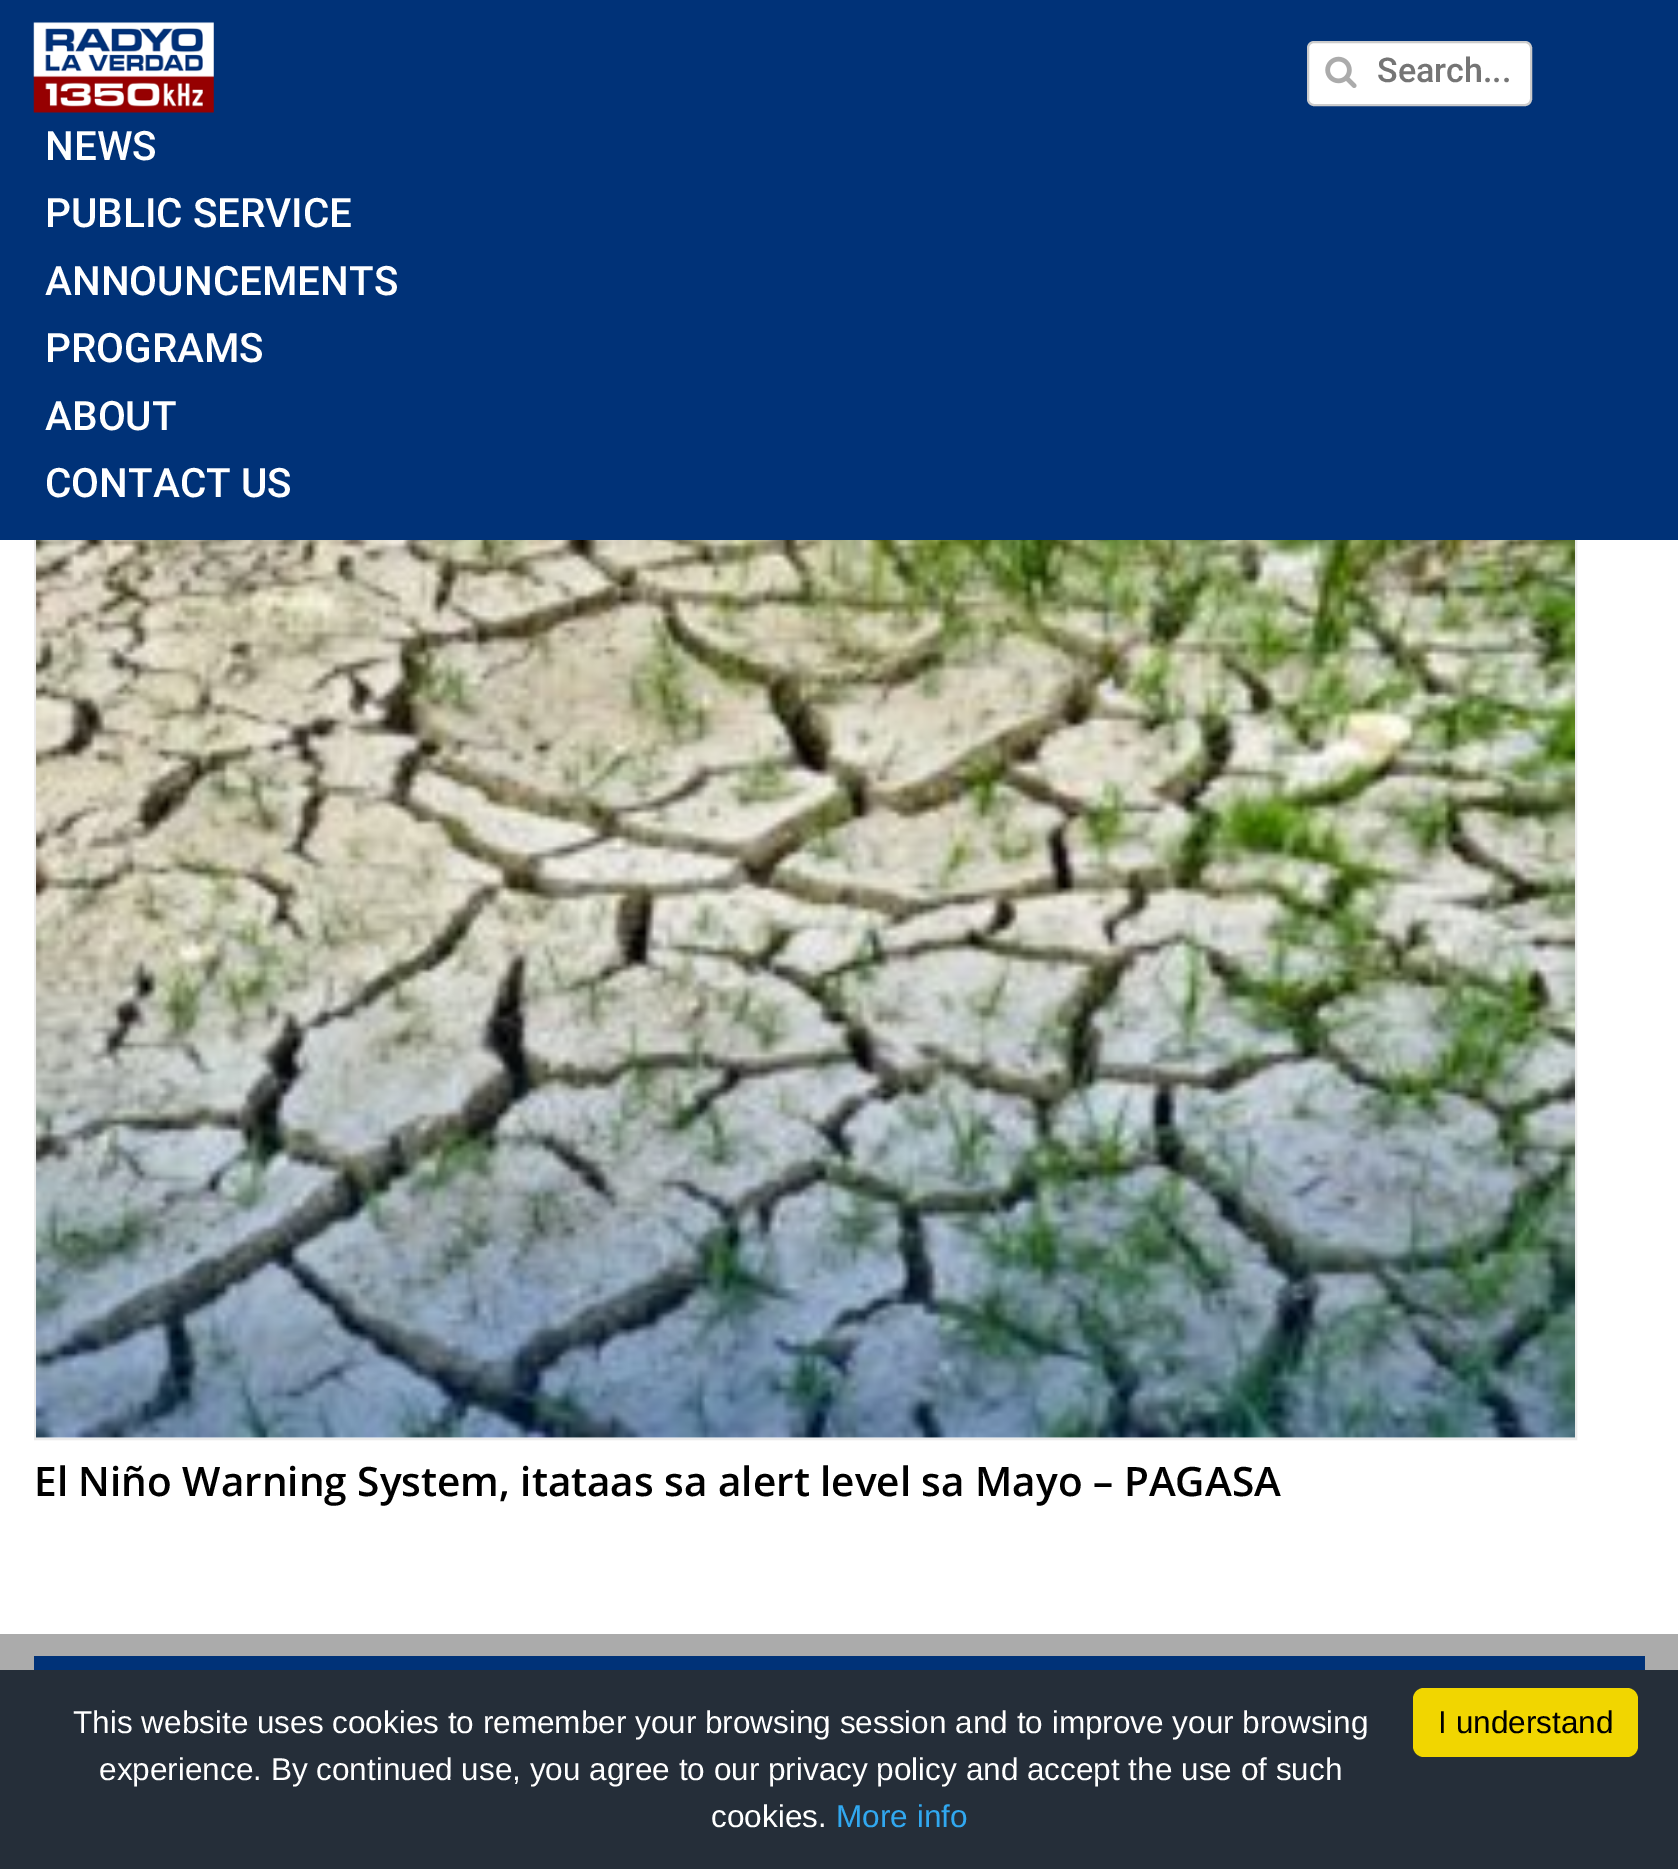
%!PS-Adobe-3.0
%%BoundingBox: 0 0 1678 1869
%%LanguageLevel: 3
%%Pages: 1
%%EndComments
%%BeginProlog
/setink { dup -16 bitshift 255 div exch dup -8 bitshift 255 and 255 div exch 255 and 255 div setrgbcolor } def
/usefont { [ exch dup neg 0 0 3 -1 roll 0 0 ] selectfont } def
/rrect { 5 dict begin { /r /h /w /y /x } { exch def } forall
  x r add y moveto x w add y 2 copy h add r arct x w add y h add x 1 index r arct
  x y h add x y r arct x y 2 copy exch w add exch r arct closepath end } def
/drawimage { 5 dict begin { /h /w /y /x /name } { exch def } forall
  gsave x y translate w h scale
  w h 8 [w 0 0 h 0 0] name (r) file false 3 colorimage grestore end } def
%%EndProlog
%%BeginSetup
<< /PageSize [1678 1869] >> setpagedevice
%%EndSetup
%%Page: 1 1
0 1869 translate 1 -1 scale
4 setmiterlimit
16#FFFFFF setink
0 0 1678 1869 rectfill
16#EBEBEB setink
2 setlinewidth
35 206 1541 1233 rectstroke
16#003278 setink
0 0 1678 540 rectfill
(img1.raw) 33 22 181 91 drawimage
16#FFFFFF setink
1308 42 223 63 6 rrect gsave fill grestore
16#CCCCCC setink
stroke
(img2.raw) 1325 56 32 32 drawimage
/Roboto-Medium 34 usefont
16#757575 setink
1377 82 moveto (Search...) show
/Roboto-Medium 40.5 usefont
16#FFFFFF setink
[
    [(NEWS) 45 160]
    [(PUBLIC SERVICE) 45 227]
    [(ANNOUNCEMENTS) 45 295]
    [(PROGRAMS) 45 362]
    [(ABOUT) 45 430]
    [(CONTACT US) 45 497]
] { aload pop moveto show } forall
(img3.raw) 36 540 1539 898 drawimage
/OpenSans-SemiBold 40.5 usefont
16#000000 setink
34 1496 moveto (El Niño Warning System, itataas sa alert level sa Mayo – PAGASA) show
[
    [0 1634 1678 36 16#ABABAB]
    [34 1656 1611 14 16#003278]
    [0 1670 1678 199 16#252E39]
] { aload pop setink rectfill } forall
/LiberationSans-Regular 31.5 usefont
16#FFFFFF setink
[
    [(This website uses cookies to remember your browsing session and to improve your browsing) 73 1733]
    [(experience. By continued use, you agree to our privacy policy and accept the use of such) 99 1780]
    [(cookies.) 711 1827]
] { aload pop moveto show } forall
16#31A8F0 setink
836 1827 moveto (More info) show
16#F1D600 setink
1413 1688 225 69 11 rrect fill
16#000000 setink
1438 1733 moveto (I understand) show
showpage
%%EOF
